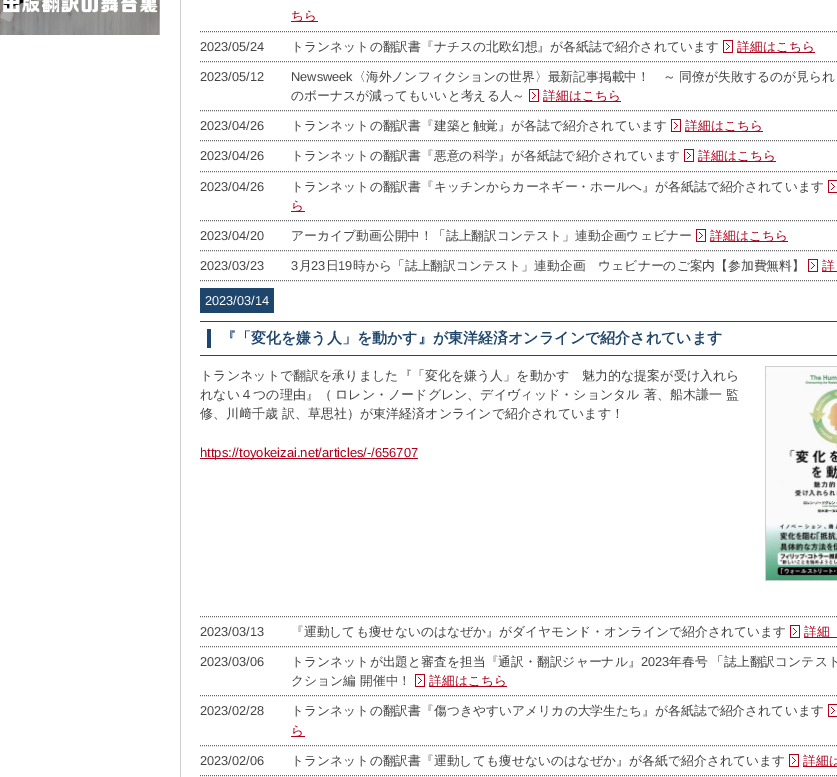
%!PS-Adobe-3.0
%%BoundingBox: 0 0 837 777
%%LanguageLevel: 3
%%Pages: 1
%%EndComments
%%BeginProlog
/setink { dup -16 bitshift 255 div exch dup -8 bitshift 255 and 255 div exch 255 and 255 div setrgbcolor } def
/usefont { [ exch dup neg 0 0 3 -1 roll 0 0 ] selectfont } def
/drawimage { 5 dict begin { /h /w /y /x /name } { exch def } forall
  gsave x y translate w h scale
  w h 8 [w 0 0 h 0 0] name (r) file false 3 colorimage grestore end } def
%%EndProlog
%%BeginSetup
<< /PageSize [837 777] >> setpagedevice
%%EndSetup
%%Page: 1 1
0 777 translate 1 -1 scale
4 setmiterlimit
16#FFFFFF setink
0 0 837 777 rectfill
(img1.raw) 0 0 160 35 drawimage
16#CCCCCC setink
180 0 1 777 rectfill
16#666666 setink
[1 1] 0 setdash
286 31.5 moveto 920 31.5 lineto stroke
16#B3001A setink
291 21 27 1 rectfill
/WenQuanYiZenHei-Medium 12.8 usefont
291 20 moveto (ちら) show
16#666666 setink
200 31.5 moveto 286 31.5 lineto stroke
200 61.5 moveto 286 61.5 lineto stroke
/LiberationSans-Regular 12.8 usefont
16#444444 setink
200 51 moveto (2023/05/24) show
16#666666 setink
286 61.5 moveto 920 61.5 lineto stroke
/WenQuanYiZenHei-Medium 12.8 usefont
16#444444 setink
291 51 moveto (トランネットの翻訳書『ナチスの北欧幻想』が各紙誌で紹介されています) show
(img2.raw) 723 40 10 13 drawimage
16#B3001A setink
737 52 78 1 rectfill
737 51 moveto (詳細はこちら) show
16#666666 setink
200 110.5 moveto 286 110.5 lineto stroke
/LiberationSans-Regular 12.8 usefont
16#444444 setink
200 81 moveto (2023/05/12) show
16#666666 setink
286 110.5 moveto 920 110.5 lineto stroke
16#444444 setink
291 81 moveto (Newsweek) show
/WenQuanYiZenHei-Medium 12.8 usefont
353 81 moveto (〈海外ノンフィクションの世界〉最新記事掲載中！　～ 同僚が失敗するのが見られ) show
291 100 moveto (のボーナスが減ってもいいと考える人～) show
(img2.raw) 529 89 10 13 drawimage
16#B3001A setink
543 101 78 1 rectfill
543 100 moveto (詳細はこちら) show
16#666666 setink
200 140.5 moveto 286 140.5 lineto stroke
/LiberationSans-Regular 12.8 usefont
16#444444 setink
200 130 moveto (2023/04/26) show
16#666666 setink
286 140.5 moveto 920 140.5 lineto stroke
/WenQuanYiZenHei-Medium 12.8 usefont
16#444444 setink
291 130 moveto (トランネットの翻訳書『建築と触覚』が各誌で紹介されています) show
(img2.raw) 671 119 10 13 drawimage
16#B3001A setink
685 131 78 1 rectfill
685 130 moveto (詳細はこちら) show
16#666666 setink
200 171.5 moveto 286 171.5 lineto stroke
/LiberationSans-Regular 12.8 usefont
16#444444 setink
200 160 moveto (2023/04/26) show
16#666666 setink
286 171.5 moveto 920 171.5 lineto stroke
/WenQuanYiZenHei-Medium 12.8 usefont
16#444444 setink
291 160 moveto (トランネットの翻訳書『悪意の科学』が各紙誌で紹介されています) show
(img2.raw) 684 149 10 13 drawimage
16#B3001A setink
698 161 78 1 rectfill
698 160 moveto (詳細はこちら) show
16#666666 setink
200 220.5 moveto 286 220.5 lineto stroke
/LiberationSans-Regular 12.8 usefont
16#444444 setink
200 191 moveto (2023/04/26) show
16#666666 setink
286 220.5 moveto 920 220.5 lineto stroke
/WenQuanYiZenHei-Medium 12.8 usefont
16#444444 setink
291 191 moveto (トランネットの翻訳書『キッチンからカーネギー・ホールへ』が各紙誌で紹介されています) show
(img3.raw) 828 180 9 13 drawimage
16#B3001A setink
291 211 14 1 rectfill
291 210 moveto (ら) show
16#666666 setink
200 250.5 moveto 286 250.5 lineto stroke
/LiberationSans-Regular 12.8 usefont
16#444444 setink
200 240 moveto (2023/04/20) show
16#666666 setink
286 250.5 moveto 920 250.5 lineto stroke
/WenQuanYiZenHei-Medium 12.8 usefont
16#444444 setink
291 240 moveto (アーカイブ動画公開中！「誌上翻訳コンテスト」連動企画ウェビナー) show
(img2.raw) 696 229 10 13 drawimage
16#B3001A setink
710 241 78 1 rectfill
710 240 moveto (詳細はこちら) show
16#666666 setink
200 280.5 moveto 286 280.5 lineto stroke
/LiberationSans-Regular 12.8 usefont
16#444444 setink
200 270 moveto (2023/03/23) show
16#666666 setink
286 280.5 moveto 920 280.5 lineto stroke
16#444444 setink
291 270 moveto (3) show
/WenQuanYiZenHei-Medium 12.8 usefont
299 270 moveto (月) show
/LiberationSans-Regular 12.8 usefont
311 270 moveto (23) show
/WenQuanYiZenHei-Medium 12.8 usefont
326 270 moveto (日) show
/LiberationSans-Regular 12.8 usefont
338 270 moveto (19) show
/WenQuanYiZenHei-Medium 12.8 usefont
353 270 moveto (時から「誌上翻訳コンテスト」連動企画　ウェビナーのご案内【参加費無料】) show
(img2.raw) 808 259 10 13 drawimage
16#B3001A setink
822 271 15 1 rectfill
822 270 moveto (詳) show
16#666666 setink
200 616.5 moveto 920 616.5 lineto stroke
16#1E466C setink
200 288 74 25 rectfill
/LiberationSans-Regular 12.8 usefont
16#FFFFFF setink
205 305 moveto (2023/03/14) show
[
    [200 321 637 1 16#1E466C]
    [200 355 637 1 16#1E466C]
    [207 329 4 19 16#1E466C]
] { aload pop setink rectfill } forall
/WenQuanYiZenHei-Bold 15 usefont
221 343 moveto (『「変化を嫌う人」を動かす』が東洋経済オンラインで紹介されています) show
/WenQuanYiZenHei-Medium 13 usefont
16#444444 setink
[
    [(トランネットで翻訳を承りました『「変化を嫌う人」を動かす　魅力的な提案が受け入れら) 200 380]
    [(れない４つの理由』（) 200 399]
    [(ロレン・ノードグレン、デイヴィッド・ションタル 著、船木謙一 監) 335 399]
    [(修、川) 200 418]
] { aload pop moveto show } forall
/IPAPGothic-Regular 13 usefont
239 418 moveto (﨑) show
/WenQuanYiZenHei-Medium 13 usefont
252 418 moveto (千歳 訳、草思社）が東洋経済オンラインで紹介されています！) show
16#B3001A setink
200 458 218 1 rectfill
/LiberationSans-Regular 13 usefont
200 457 moveto (https://toyokeizai.net/articles/-/656707) show
(img4.raw) 765 366 72 215 drawimage
16#666666 setink
200 646.5 moveto 286 646.5 lineto stroke
/LiberationSans-Regular 12.8 usefont
16#444444 setink
200 636 moveto (2023/03/13) show
16#666666 setink
286 646.5 moveto 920 646.5 lineto stroke
/WenQuanYiZenHei-Medium 12.8 usefont
16#444444 setink
291 636 moveto (『運動しても痩せないのはなぜか』がダイヤモンド・オンラインで紹介されています) show
(img2.raw) 790 625 10 13 drawimage
16#B3001A setink
804 637 33 1 rectfill
804 636 moveto (詳細) show
16#666666 setink
200 695.5 moveto 286 695.5 lineto stroke
/LiberationSans-Regular 12.8 usefont
16#444444 setink
200 666 moveto (2023/03/06) show
16#666666 setink
286 695.5 moveto 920 695.5 lineto stroke
/WenQuanYiZenHei-Medium 12.8 usefont
16#444444 setink
291 666 moveto (トランネットが出題と審査を担当『通訳・翻訳ジャーナル』) show
/LiberationSans-Regular 12.8 usefont
641 666 moveto (2023) show
/WenQuanYiZenHei-Medium 12.8 usefont
669 666 moveto (年春号 「誌上翻訳コンテスト) show
291 685 moveto (クション編 開催中！) show
(img2.raw) 415 674 10 13 drawimage
16#B3001A setink
429 686 78 1 rectfill
429 685 moveto (詳細はこちら) show
16#666666 setink
200 745.5 moveto 286 745.5 lineto stroke
/LiberationSans-Regular 12.8 usefont
16#444444 setink
200 715 moveto (2023/02/28) show
16#666666 setink
286 745.5 moveto 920 745.5 lineto stroke
/WenQuanYiZenHei-Medium 12.8 usefont
16#444444 setink
291 715 moveto (トランネットの翻訳書『傷つきやすいアメリカの大学生たち』が各紙誌で紹介されています) show
(img3.raw) 828 704 9 13 drawimage
16#B3001A setink
291 736 14 1 rectfill
291 735 moveto (ら) show
16#666666 setink
200 775.5 moveto 286 775.5 lineto stroke
/LiberationSans-Regular 12.8 usefont
16#444444 setink
200 765 moveto (2023/02/06) show
16#666666 setink
286 775.5 moveto 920 775.5 lineto stroke
/WenQuanYiZenHei-Medium 12.8 usefont
16#444444 setink
291 765 moveto (トランネットの翻訳書『運動しても痩せないのはなぜか』が各紙で紹介されています) show
(img2.raw) 789 754 10 13 drawimage
16#B3001A setink
803 766 34 1 rectfill
803 765 moveto (詳細は) show
showpage
%%EOF
